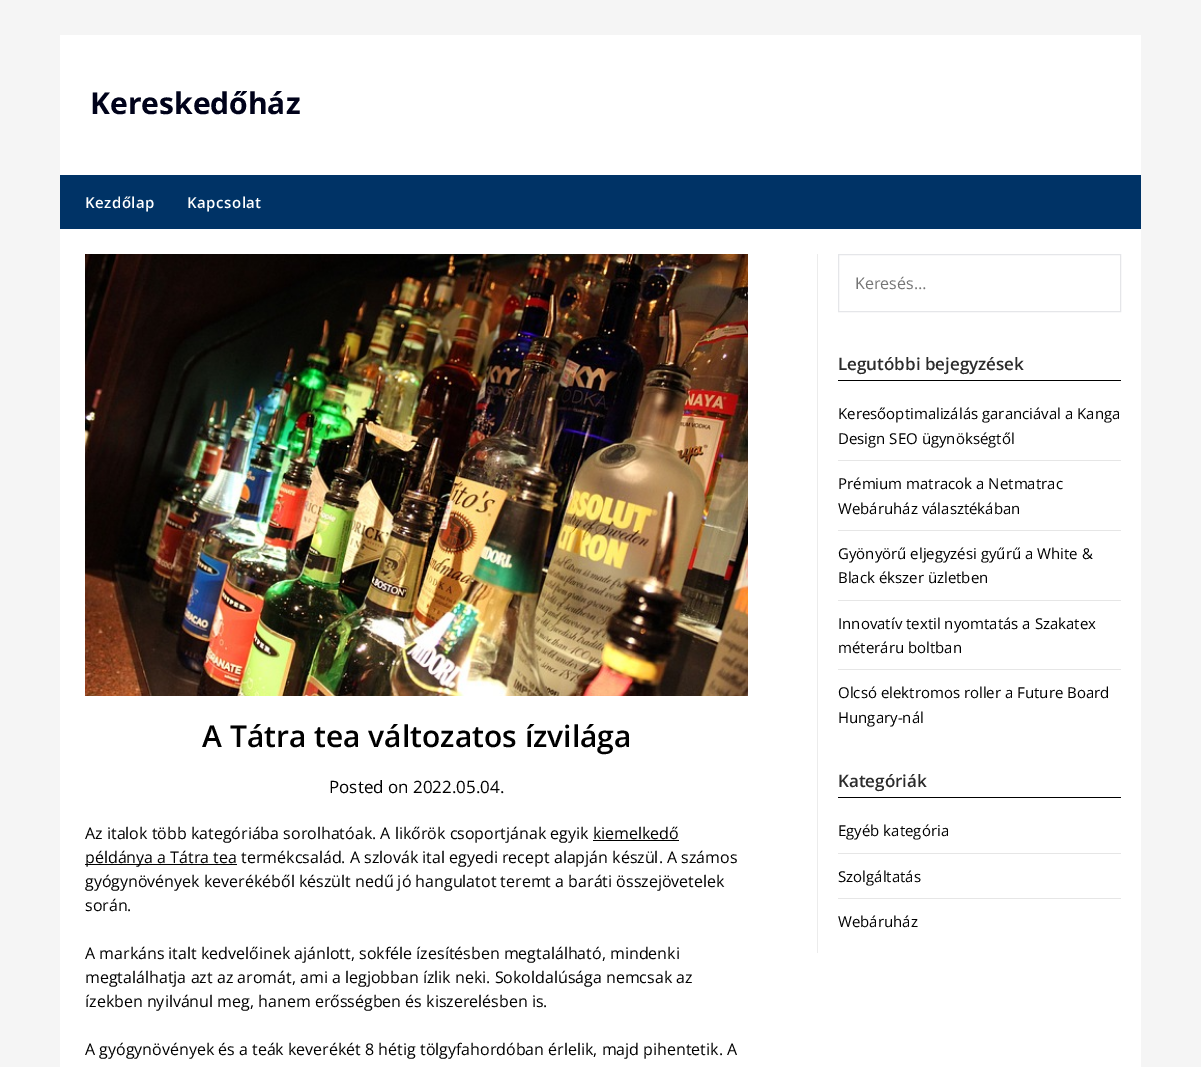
%!PS-Adobe-3.0
%%BoundingBox: 0 0 1201 1067
%%LanguageLevel: 3
%%Pages: 1
%%EndComments
%%BeginProlog
/setink { dup -16 bitshift 255 div exch dup -8 bitshift 255 and 255 div exch 255 and 255 div setrgbcolor } def
/usefont { [ exch dup neg 0 0 3 -1 roll 0 0 ] selectfont } def
/drawimage { 5 dict begin { /h /w /y /x /name } { exch def } forall
  gsave x y translate w h scale
  w h 8 [w 0 0 h 0 0] name (r) file false 3 colorimage grestore end } def
%%EndProlog
%%BeginSetup
<< /PageSize [1201 1067] >> setpagedevice
%%EndSetup
%%Page: 1 1
0 1067 translate 1 -1 scale
4 setmiterlimit
16#F5F5F5 setink
0 0 1201 1067 rectfill
16#FFFFFF setink
60 35 1081 140 rectfill
/OpenSans-Bold 30 usefont
16#00021A setink
90 114 moveto (Kereskedőház) show
16#003366 setink
60 175 1081 54 rectfill
/OpenSans-SemiBold 15 usefont
16#FFFFFF setink
85 208 moveto 0.5 0 (Kezdőlap) ashow
187 208 moveto 0.5 0 (Kapcsolat) ashow
60 229 1081 838 rectfill
(img1.raw) 85 254 663 442 drawimage
/OpenSans-SemiBold 30 usefont
16#000000 setink
202 747 moveto (A Tátra tea változatos ízvilága) show
/OpenSans-Regular 17 usefont
329 793 moveto (Posted on 2022.05.04.) show
/OpenSans-Regular 16 usefont
85 839 moveto (Az italok több kategóriába sorolhatóak. A likőrök csoportjának egyik kiemelkedő) show
85 864 152 1 rectfill
85 863 moveto (példánya a Tátra tea termékcsalád. A szlovák ital egyedi recept alapján készül. A számos) show
593 840 86 1 rectfill
[
    [(gyógynövények keverékéből készült nedű jó hangulatot teremt a baráti összejövetelek) 85 887]
    [(során.) 85 911]
    [(A markáns italt kedvelőinek ajánlott, sokféle ízesítésben megtalálható, mindenki) 85 959]
    [(megtalálhatja azt az aromát, ami a legjobban ízlik neki. Sokoldalúsága nemcsak az) 85 983]
    [(ízekben nyilvánul meg, hanem erősségben és kiszerelésben is.) 85 1007]
    [(A gyógynövények és a teák keverékét 8 hétig tölgyfahordóban érlelik, majd pihentetik. A) 85 1055]
] { aload pop moveto show } forall
16#ECECEC setink
817 254 1 699 rectfill
16#E5E6E9 setink
838.5 254.5 282 57 rectstroke
16#757575 setink
855 289 moveto (Keresés…) show
16#000000 setink
838 380 283 1 rectfill
/OpenSans-SemiBold 17 usefont
16#2B2B2B setink
838 370 moveto (Legutóbbi bejegyzések) show
16#E6E6E6 setink
838 460 283 1 rectfill
/OpenSans-Regular 15 usefont
16#000000 setink
838 419 moveto (Keresőoptimalizálás garanciával a Kanga) show
838 444 moveto (Design SEO ügynökségtől) show
16#E6E6E6 setink
838 530 283 1 rectfill
16#000000 setink
838 489 moveto (Prémium matracok a Netmatrac) show
838 514 moveto (Webáruház választékában) show
16#E6E6E6 setink
838 600 283 1 rectfill
16#000000 setink
838 559 moveto (Gyönyörű eljegyzési gyűrű a White &) show
838 583 moveto (Black ékszer üzletben) show
16#E6E6E6 setink
838 669 283 1 rectfill
16#000000 setink
[
    [(Innovatív textil nyomtatás a Szakatex) 838 629]
    [(méteráru boltban) 838 653]
    [(Olcsó elektromos roller a Future Board) 838 698]
    [(Hungary-nál) 838 723]
] { aload pop moveto show } forall
838 797 283 1 rectfill
/OpenSans-SemiBold 17 usefont
16#2B2B2B setink
838 787 moveto (Kategóriák) show
16#E6E6E6 setink
838 853 283 1 rectfill
/OpenSans-Regular 15 usefont
16#000000 setink
838 836 moveto (Egyéb kategória) show
16#E6E6E6 setink
838 898 283 1 rectfill
16#000000 setink
838 882 moveto (Szolgáltatás) show
838 927 moveto (Webáruház) show
showpage
%%EOF
